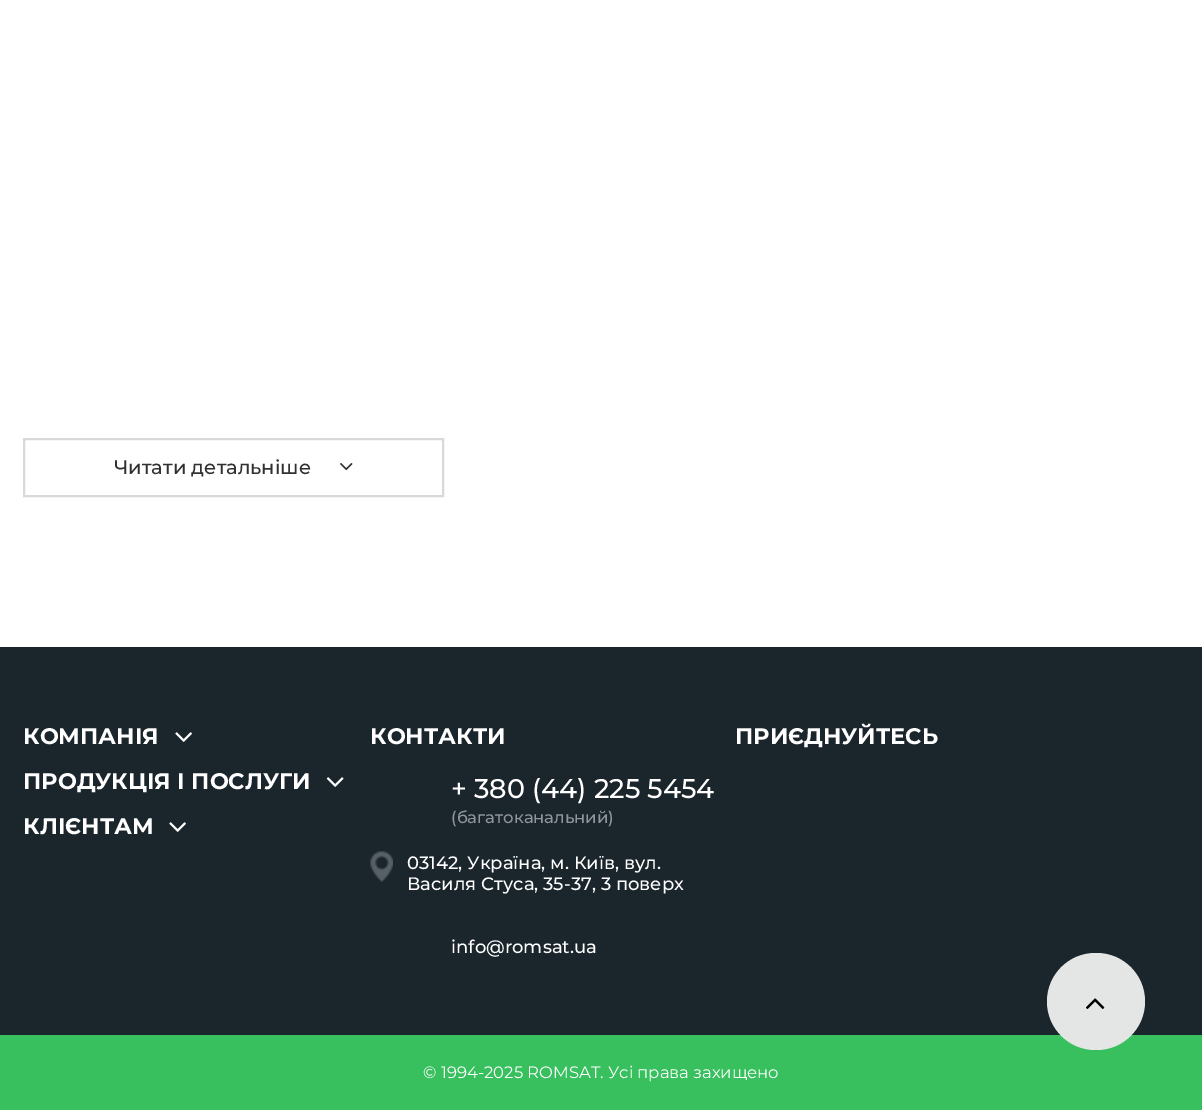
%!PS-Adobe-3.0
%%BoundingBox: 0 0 1202 1110
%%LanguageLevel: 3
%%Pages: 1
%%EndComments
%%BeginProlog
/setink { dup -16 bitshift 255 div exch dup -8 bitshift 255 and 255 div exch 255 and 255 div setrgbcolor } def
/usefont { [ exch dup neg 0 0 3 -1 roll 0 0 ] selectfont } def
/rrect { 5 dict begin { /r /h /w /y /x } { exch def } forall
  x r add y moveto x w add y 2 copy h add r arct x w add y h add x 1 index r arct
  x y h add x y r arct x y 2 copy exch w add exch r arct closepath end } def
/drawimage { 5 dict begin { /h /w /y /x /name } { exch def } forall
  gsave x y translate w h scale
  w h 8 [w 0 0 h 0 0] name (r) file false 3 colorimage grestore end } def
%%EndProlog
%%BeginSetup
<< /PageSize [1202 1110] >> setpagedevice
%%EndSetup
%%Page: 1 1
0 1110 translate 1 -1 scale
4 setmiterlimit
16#FFFFFF setink
0 0 1202 1110 rectfill
16#D8DADA setink
2 setlinewidth
24 439 419 57 rectstroke
/Montserrat-Medium 19.5 usefont
16#313131 setink
114 474 moveto (Читати детальніше) show
(img1.raw) 340 463 13 8 drawimage
16#1B252C setink
0 647 1202 388 rectfill
/Montserrat-Bold 22.5 usefont
16#FFFFFF setink
23 744 moveto (КОМПАНІЯ) show
(img2.raw) 175 732 17 10 drawimage
23 789 moveto (ПРОДУКЦІЯ І ПОСЛУГИ) show
(img3.raw) 326 777 18 10 drawimage
23 834 moveto (КЛІЄНТАМ) show
(img2.raw) 169 822 17 10 drawimage
370 744 moveto (КОНТАКТИ) show
/Montserrat-Medium 27 usefont
451 798 moveto (+ 380 \(44\) 225 5454) show
/Montserrat-Medium 16.5 usefont
16#90979C setink
451 823 moveto (\(багатоканальний\)) show
(img4.raw) 370 851 23 31 drawimage
/Montserrat-Medium 18 usefont
16#FFFFFF setink
[
    [(03142, Україна, м. Київ, вул.) 407 869]
    [(Василя Стуса, 35-37, 3 поверх) 407 890]
    [(info@romsat.ua) 451 953]
] { aload pop moveto show } forall
/Montserrat-Bold 22.5 usefont
735 744 moveto (ПРИЄДНУЙТЕСЬ) show
16#38C05F setink
0 1035 1202 75 rectfill
/Montserrat-Regular 16.5 usefont
16#FFFFFF setink
423 1078 moveto (© 1994-2025 ROMSAT. Усі права захищено) show
16#E4E5E5 setink
1047 953 98 97 48.5 rrect fill
(img5.raw) 1086 998 19 11 drawimage
showpage
%%EOF
